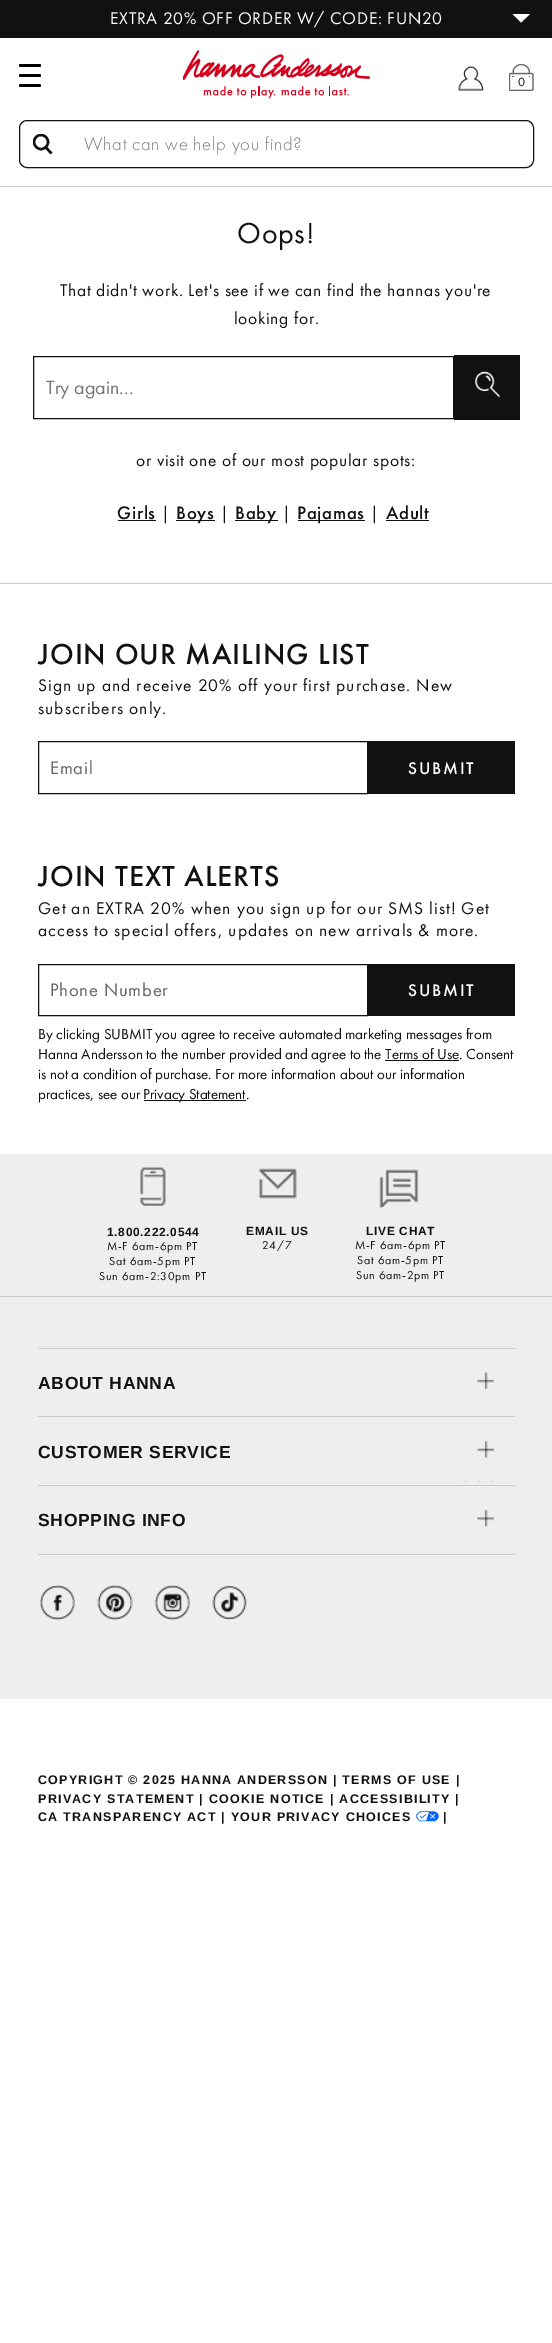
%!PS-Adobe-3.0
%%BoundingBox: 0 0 552 2343
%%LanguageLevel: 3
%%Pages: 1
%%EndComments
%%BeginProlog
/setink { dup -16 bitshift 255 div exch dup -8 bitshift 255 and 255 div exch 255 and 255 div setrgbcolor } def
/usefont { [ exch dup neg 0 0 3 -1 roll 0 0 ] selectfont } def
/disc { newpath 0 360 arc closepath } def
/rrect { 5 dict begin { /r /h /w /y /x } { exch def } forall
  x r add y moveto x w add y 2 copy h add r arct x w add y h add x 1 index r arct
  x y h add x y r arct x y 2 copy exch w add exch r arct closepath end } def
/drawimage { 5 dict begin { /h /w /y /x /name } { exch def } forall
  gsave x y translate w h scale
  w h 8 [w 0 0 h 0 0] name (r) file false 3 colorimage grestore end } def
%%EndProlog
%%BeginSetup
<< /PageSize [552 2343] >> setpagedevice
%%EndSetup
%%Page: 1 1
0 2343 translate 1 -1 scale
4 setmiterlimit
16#FFFFFF setink
0 0 552 2343 rectfill
16#CCCCCC setink
0 186 552 1 rectfill
16#111111 setink
0 0 552 38 rectfill
/FuturaPT-Regular 17.5 usefont
16#FFFFFF setink
110 24 moveto 0.7 0 (EXTRA 20% OFF ORDER W/ CODE: FUN20) ashow
512.5 14 moveto 521 22.5 lineto 530 14 lineto closepath fill
16#000000 setink
19 64 22 3 1.5 rrect fill
19 74 22 3 1.5 rrect fill
19 84 22 3 1.5 rrect fill
(img1.raw) 183 50 187 49 drawimage
(img2.raw) 458 66 26 25 drawimage
(img3.raw) 509 64 25 27 drawimage
/FuturaPT-Regular 12.5 usefont
16#111111 setink
518 86 moveto (0) show
19.5 120.5 514 47 7.5 rrect stroke
gsave
33 134 21 21 rectclip
2.4 setlinewidth
41 142 7 disc stroke
grestore
2.4 setlinewidth
51.5 153.5 moveto 46 147.5 lineto stroke
/FuturaPT-Light 18.75 usefont
16#767676 setink
84 150 moveto 0.7 0 (What can we help you find?) ashow
/FuturaPT-Regular 30 usefont
16#111111 setink
237 243 moveto 0.7 0 (Oops!) ashow
/FuturaPT-Regular 17.5 usefont
60 296 moveto 0.7 0 (That didn't work. Let's see if we can find the hannas you're) ashow
234 324 moveto 0.7 0 (looking for.) ashow
1 setlinewidth
33.5 356.5 420 62 rectstroke
/FuturaPT-Regular 20 usefont
16#767676 setink
46 394 moveto (Try again...) show
16#111111 setink
454 355 66 65 rectfill
(img4.raw) 475 371 25 27 drawimage
/FuturaPT-Regular 17.5 usefont
136 466 moveto 0.7 0 (or visit one of our most popular spots:) ashow
/FuturaPT-Medium 18.75 usefont
117 519 moveto 0.7 0 (Girls) ashow
118 520 38 1 rectfill
/FuturaPT-Regular 17.5 usefont
161 519 moveto 0.7 0 (|) ashow
176 520 39 1 rectfill
/FuturaPT-Medium 18.75 usefont
176 519 moveto 0.7 0 (Boys) ashow
/FuturaPT-Regular 17.5 usefont
220 519 moveto 0.7 0 (|) ashow
235 520 43 1 rectfill
/FuturaPT-Medium 18.75 usefont
235 519 moveto 0.7 0 (Baby) ashow
/FuturaPT-Regular 17.5 usefont
282 519 moveto 0.7 0 (|) ashow
298 520 67 1 rectfill
/FuturaPT-Medium 18.75 usefont
297 519 moveto 0.7 0 (Pajamas) ashow
/FuturaPT-Regular 17.5 usefont
370 519 moveto 0.7 0 (|) ashow
/FuturaPT-Medium 18.75 usefont
386 519 moveto 0.7 0 (Adult) ashow
386 520 43 1 rectfill
16#CCCCCC setink
0 583 552 1 rectfill
/FuturaPT-Medium 30 usefont
16#111111 setink
38 664 moveto 1 0 (JOIN OUR MAILING LIST) ashow
/FuturaPT-Regular 17.5 usefont
38 691 moveto 1 0 (Sign up and receive 20% off your first purchase. New) ashow
38 714 moveto 1 0 (subscribers only.) ashow
38.5 741.5 329 52 rectstroke
/FuturaPT-Regular 18.75 usefont
16#666666 setink
50 774 moveto 0.75 0 (Email) ashow
16#111111 setink
368 741 147 53 rectfill
/FuturaPT-Medium 17.5 usefont
16#FFFFFF setink
408 774 moveto 1.75 0 (SUBMIT) ashow
/FuturaPT-Medium 30 usefont
16#111111 setink
38 886 moveto 1 0 (JOIN TEXT ALERTS) ashow
/FuturaPT-Regular 17.5 usefont
38 914 moveto 1 0 (Get an EXTRA 20% when you sign up for our SMS list! Get) ashow
38 936 moveto 1 0 (access to special offers, updates on new arrivals & more.) ashow
38.5 964.5 329 51 rectstroke
/FuturaPT-Regular 18.75 usefont
16#666666 setink
50 996 moveto 0.75 0 (Phone Number) ashow
16#111111 setink
368 964 147 52 rectfill
/FuturaPT-Medium 17.5 usefont
16#FFFFFF setink
408 996 moveto 1.75 0 (SUBMIT) ashow
/FuturaPT-Regular 15 usefont
16#111111 setink
38 1039 moveto (By clicking SUBMIT you agree to receive automated marketing messages from) show
38 1059 moveto (Hanna Andersson to the number provided and agree to the Terms of Use. Consent) show
385 1060 74 1 rectfill
38 1079 moveto (is not a condition of purchase. For more information about our information) show
38 1099 moveto (practices, see our) show
144 1100 102 1 rectfill
143 1099 moveto (Privacy Statement.) show
16#EEEEEE setink
0 1154 552 545 rectfill
16#CCCCCC setink
0 1296 552 1 rectfill
(img5.raw) 140 1167 26 39 drawimage
/LiberationSans-Bold 11.9 usefont
16#111111 setink
107 1236 moveto 0.7 0 (1.800.222.0544) ashow
/FuturaPT-Regular 11.9 usefont
107 1250 moveto 0.7 0 (M-F 6am-6pm PT) ashow
109 1265 moveto 0.7 0 (Sat 6am-5pm PT) ashow
99 1280 moveto 0.7 0 (Sun 6am-2:30pm PT) ashow
(img6.raw) 259 1168 38 31 drawimage
/LiberationSans-Bold 11.9 usefont
246 1235 moveto 0.7 0 (EMAIL US) ashow
/FuturaPT-Regular 11.9 usefont
262 1249 moveto 0.7 0 (24/7) ashow
(img7.raw) 379 1169 40 39 drawimage
/LiberationSans-Bold 11.9 usefont
366 1235 moveto 0.7 0 (LIVE CHAT) ashow
/FuturaPT-Regular 11.9 usefont
355 1249 moveto 0.7 0 (M-F 6am-6pm PT) ashow
357 1264 moveto 0.7 0 (Sat 6am-5pm PT) ashow
356 1279 moveto 0.7 0 (Sun 6am-2pm PT) ashow
16#CCCCCC setink
38 1348 477 1 rectfill
38 1416 477 1 rectfill
/LiberationSans-Bold 17.5 usefont
16#111111 setink
38 1389 moveto 0.7 0 (ABOUT HANNA) ashow
(img8.raw) 477 1372 17 17 drawimage
16#CCCCCC setink
38 1485 477 1 rectfill
16#111111 setink
38 1458 moveto 0.7 0 (CUSTOMER SERVICE) ashow
(img9.raw) 463 1441 31 41 drawimage
gsave
38 1418 477 67 rectclip
16#EEEEEE setink
23 setlinewidth
465.5 1429.5 41 40 rectstroke
grestore
16#CCCCCC setink
38 1554 477 1 rectfill
16#111111 setink
38 1526 moveto 0.7 0 (SHOPPING INFO) ashow
(img10.raw) 477 1509 17 18 drawimage
(img11.raw) 39 1585 37 36 drawimage
(img12.raw) 97 1585 36 36 drawimage
(img13.raw) 154 1585 37 36 drawimage
(img14.raw) 212 1586 35 34 drawimage
/LiberationSans-Bold 12.5 usefont
38 1784 moveto 1.25 0 (COPYRIGHT © 2025 HANNA ANDERSSON | TERMS OF USE |) ashow
38 1803 moveto 1.25 0 (PRIVACY STATEMENT | COOKIE NOTICE | ACCESSIBILITY |) ashow
38 1821 moveto 1.25 0 (CA TRANSPARENCY ACT | YOUR PRIVACY CHOICES) ashow
(img15.raw) 416 1811 23 11 drawimage
443 1821 moveto 1.25 0 (|) ashow
showpage
%%EOF
